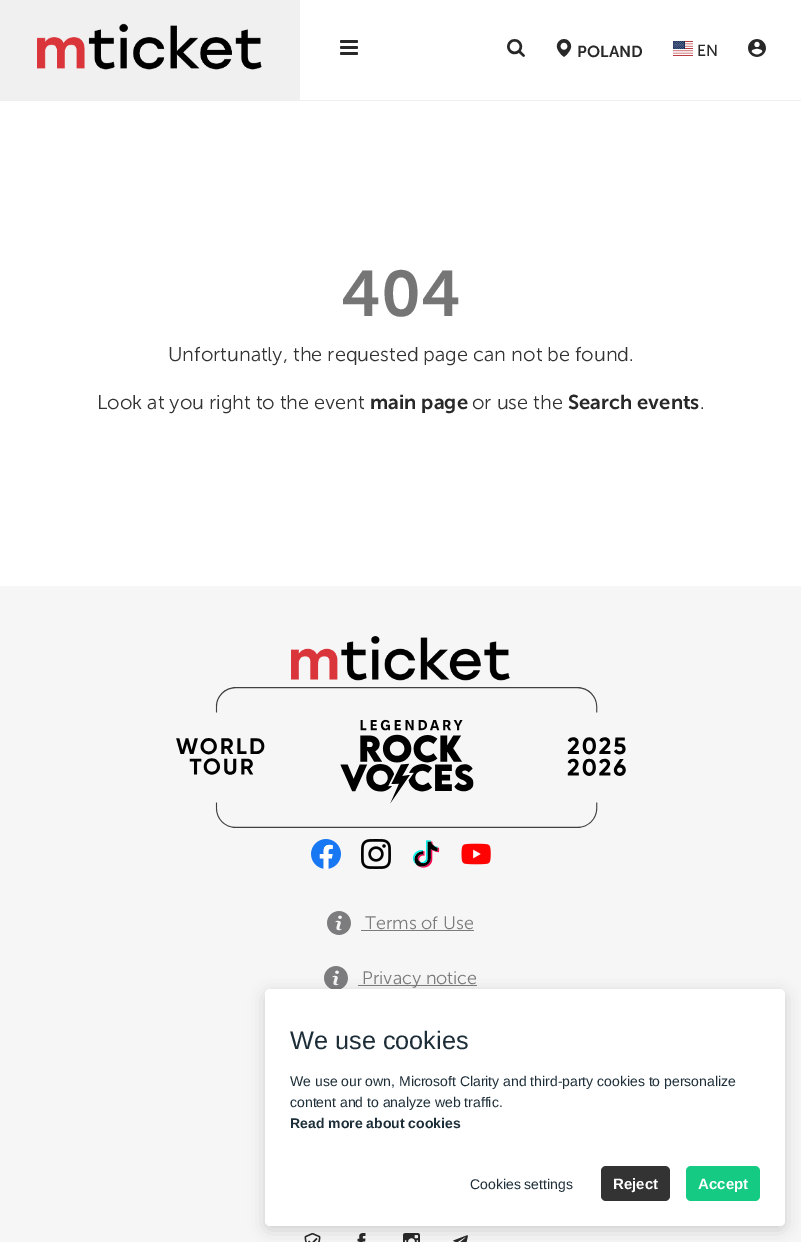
%!PS-Adobe-3.0
%%BoundingBox: 0 0 801 1242
%%LanguageLevel: 3
%%Pages: 1
%%EndComments
%%BeginProlog
/setink { dup -16 bitshift 255 div exch dup -8 bitshift 255 and 255 div exch 255 and 255 div setrgbcolor } def
/usefont { [ exch dup neg 0 0 3 -1 roll 0 0 ] selectfont } def
/setalpha { dup .setfillconstantalpha .setstrokeconstantalpha } def
/rrect { 5 dict begin { /r /h /w /y /x } { exch def } forall
  x r add y moveto x w add y 2 copy h add r arct x w add y h add x 1 index r arct
  x y h add x y r arct x y 2 copy exch w add exch r arct closepath end } def
/softshadow { 12 dict begin { /a /b /q /h /w /y /x } { exch def } forall gsave /was 0 def
  9 -2 -9 { dup b mul 4 div /e exch def 1 sub .425 mul 2.718 exch exp 1 add a .99 .min exch div /now exch def
    1 1 now sub 1 was sub div sub setalpha /was now def
    w h .min e 2 mul add 0 gt { x e sub y e sub w e 2 mul add h e 2 mul add
      q e add b .6 mul add w h .min 2 div e add .min 0 .max rrect fill } if } for grestore end } def
/drawimage { 5 dict begin { /h /w /y /x /name } { exch def } forall
  gsave x y translate w h scale
  w h 8 [w 0 0 h 0 0] name (r) file false 3 colorimage grestore end } def
%%EndProlog
%%BeginSetup
<< /PageSize [801 1242] /PageUsesTransparency true >> setpagedevice
%%EndSetup
%%Page: 1 1
0 .pushpdf14devicefilter
0 1242 translate 1 -1 scale
4 setmiterlimit
16#FFFFFF setink
0 0 801 1242 rectfill
16#F0F0F0 setink
0 100 801 1 rectfill
0 0 300 100 rectfill
(img1.raw) 37 23 225 47 drawimage
16#282828 setink
340 46 18 3 1.5 rrect fill
340 40 18 3 1.5 rrect fill
340 52 18 3 1.5 rrect fill
(img2.raw) 507 39 18 18 drawimage
(img3.raw) 556 39 16 18 drawimage
/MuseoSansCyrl-SemiBold 16 usefont
577 57 moveto (POLAND) show
(img4.raw) 673 41 20 15 drawimage
/MuseoSansCyrl-Regular 16 usefont
697 56 moveto (EN) show
(img5.raw) 748 39 18 18 drawimage
/MuseoSansCyrl-SemiBold 64 usefont
16#757575 setink
341 316 moveto (404) show
/MuseoSansCyrl-Light 20 usefont
16#333333 setink
168 361 moveto (Unfortunatly, the requested page can not be found.) show
97 409 moveto (Look at you right to the event) show
/MuseoSansCyrl-SemiBold 20 usefont
16#282828 setink
370 409 moveto (main page) show
/MuseoSansCyrl-Light 20 usefont
16#333333 setink
472 409 moveto (or use the) show
/MuseoSansCyrl-SemiBold 20 usefont
16#282828 setink
568 409 moveto (Search events) show
/MuseoSansCyrl-Light 20 usefont
16#333333 setink
700 409 moveto (.) show
16#F6F6F6 setink
0 586 801 656 rectfill
(img6.raw) 291 636 219 45 drawimage
(img7.raw) 176 687 450 141 drawimage
(img8.raw) 311 839 30 30 drawimage
(img9.raw) 361 839 30 30 drawimage
(img10.raw) 412 840 28 28 drawimage
(img11.raw) 461 843 30 22 drawimage
(img12.raw) 327 911 24 24 drawimage
/MuseoSansCyrl-Light 18 usefont
16#7B7B7B setink
365 929 moveto (Terms of Use) show
361 930 113 1 rectfill
(img13.raw) 324 966 24 23 drawimage
358 985 119 1 rectfill
362 984 moveto (Privacy notice) show
(img14.raw) 304 1233 17 9 drawimage
(img15.raw) 357 1233 9 9 drawimage
(img16.raw) 403 1233 17 9 drawimage
(img17.raw) 453 1235 15 7 drawimage
16#000000 setink
265 993 520 237 5 8 0.16 softshadow
16#FFFFFF setink
265 989 520 237 5 rrect fill
/LiberationSans-Regular 25.25 usefont
16#1D2E38 setink
290 1049 moveto (We use cookies) show
/LiberationSans-Regular 14 usefont
290 1086 moveto (We use our own, Microsoft Clarity and third-party cookies to personalize) show
290 1107 moveto (content and to analyze web traffic.) show
/LiberationSans-Bold 14 usefont
290 1128 moveto (Read more about cookies) show
/LiberationSans-Regular 14 usefont
470 1189 moveto (Cookies settings) show
16#333333 setink
601 1166 69 35 5 rrect fill
/LiberationSans-Bold 15 usefont
16#FFFFFF setink
613 1189 moveto (Reject) show
16#15CB84 setink
686 1166 74 35 5 rrect fill
16#FFFFFF setink
698 1189 moveto (Accept) show
.poppdf14devicefilter showpage
%%EOF
